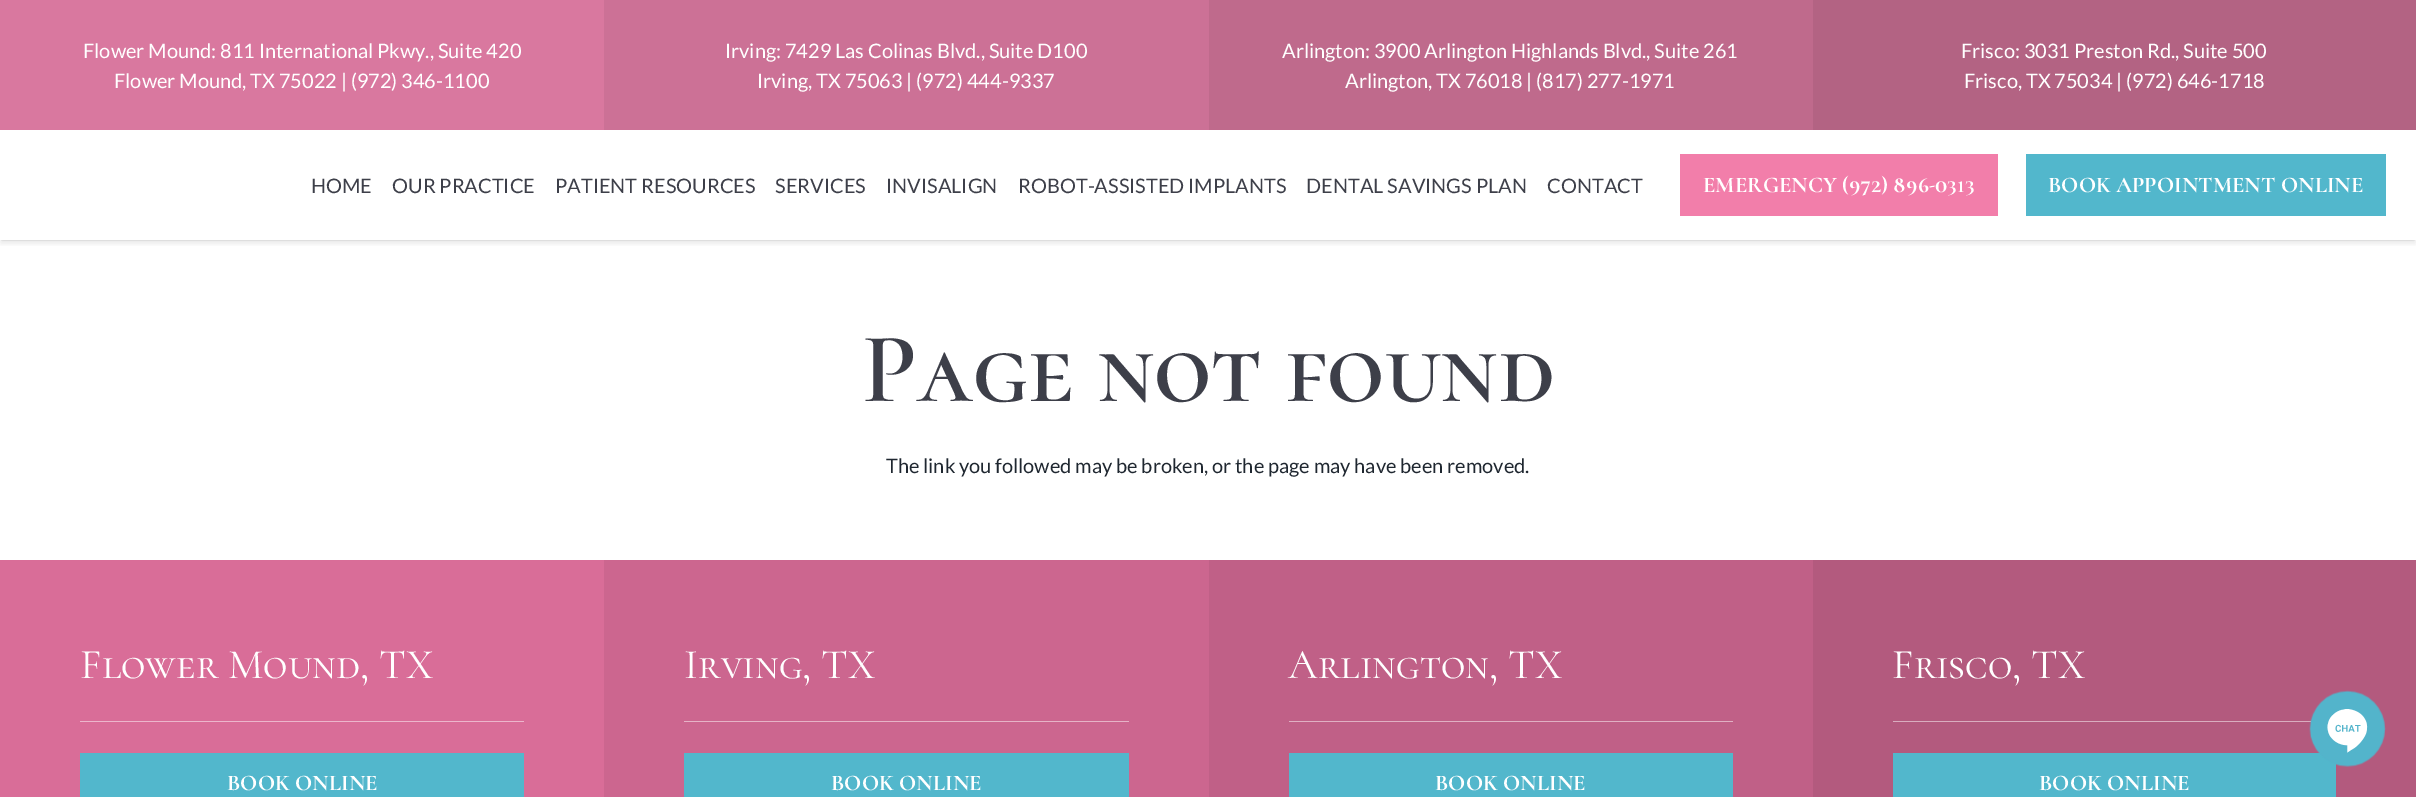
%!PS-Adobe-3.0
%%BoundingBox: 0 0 2416 797
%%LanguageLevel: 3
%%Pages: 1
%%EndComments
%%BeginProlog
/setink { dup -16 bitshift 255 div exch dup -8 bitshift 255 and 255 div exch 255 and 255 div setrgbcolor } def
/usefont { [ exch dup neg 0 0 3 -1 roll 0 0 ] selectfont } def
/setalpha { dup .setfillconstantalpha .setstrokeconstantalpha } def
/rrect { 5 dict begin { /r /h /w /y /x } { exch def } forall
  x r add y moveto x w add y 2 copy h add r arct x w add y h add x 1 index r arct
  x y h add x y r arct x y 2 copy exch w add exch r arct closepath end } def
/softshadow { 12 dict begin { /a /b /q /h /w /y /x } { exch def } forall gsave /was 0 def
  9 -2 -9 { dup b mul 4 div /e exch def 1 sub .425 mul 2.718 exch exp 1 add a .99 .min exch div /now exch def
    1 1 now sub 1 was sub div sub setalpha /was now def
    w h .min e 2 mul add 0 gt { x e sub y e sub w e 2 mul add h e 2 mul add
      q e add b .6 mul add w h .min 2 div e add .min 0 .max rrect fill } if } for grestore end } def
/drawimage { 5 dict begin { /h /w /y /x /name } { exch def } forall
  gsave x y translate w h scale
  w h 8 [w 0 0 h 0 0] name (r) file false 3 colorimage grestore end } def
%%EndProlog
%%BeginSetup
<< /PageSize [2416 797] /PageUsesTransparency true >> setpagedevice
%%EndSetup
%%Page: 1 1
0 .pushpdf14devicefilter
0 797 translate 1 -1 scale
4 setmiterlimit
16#FFFFFF setink
0 0 2416 797 rectfill
gsave
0 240 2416 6 rectclip
16#000000 setink
1 135 2414 108 0 3 0.1 softshadow
grestore
16#D9789F setink
0 0 604 130 rectfill
/Lato-Regular 20 usefont
16#FFFFFF setink
83 58 moveto (Flower Mound: 811 International Pkwy., Suite 420) show
114 88 moveto (Flower Mound, TX 75022 | \(972\) 346-1100) show
16#CC7196 setink
604 0 605 130 rectfill
16#FFFFFF setink
725 58 moveto (Irving: 7429 Las Colinas Blvd., Suite D100) show
757 88 moveto (Irving, TX 75063 | \(972\) 444-9337) show
16#BF6A8C setink
1209 0 604 130 rectfill
16#FFFFFF setink
1282 58 moveto (Arlington: 3900 Arlington Highlands Blvd., Suite 261) show
1345 88 moveto (Arlington, TX 76018 | \(817\) 277-1971) show
16#B36383 setink
1813 0 603 130 rectfill
16#FFFFFF setink
1961 58 moveto (Frisco: 3031 Preston Rd., Suite 500) show
1964 88 moveto (Frisco, TX 75034 | \(972\) 646-1718) show
gsave
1 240 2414 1 rectclip
16#000000 setink
1 134 2414 107 0 0.5 0.05 softshadow
grestore
16#3D3F49 setink
[
    [(HOME) 311 193]
    [(OUR PRACTICE) 392 193]
    [(PATIENT RESOURCES) 555 193]
    [(SERVICES) 775 193]
    [(INVISALIGN) 886 193]
    [(ROBOT-ASSISTED IMPLANTS) 1018 193]
    [(DENTAL SAVINGS PLAN) 1306 193]
    [(CONTACT) 1547 193]
] { aload pop moveto show } forall
16#F27EAA setink
1680 154 318 62 rectfill
/CormorantSC-Bold 22.5 usefont
16#FFFFFF setink
1703 192 moveto (EMERGENCY \(972\) 896-0313) show
16#52B7CC setink
2026 154 360 62 rectfill
16#FFFFFF setink
2048 192 moveto (BOOK APPOINTMENT ONLINE) show
/CormorantSC-SemiBold 100 usefont
16#3D3F49 setink
862 401 moveto (Page not found) show
/Lato-Regular 20 usefont
16#1F2730 setink
886 473 moveto (The link you followed may be broken, or the page may have been removed.) show
16#D96D98 setink
0 560 604 237 rectfill
16#ECB6CC setink
80 721 444 1 rectfill
/CormorantSC-Regular 42.25 usefont
16#FFFFFF setink
80 678 moveto (Flower Mound, TX) show
16#52B7CC setink
80 753 444 44 rectfill
/CormorantSC-Bold 22.5 usefont
16#FFFFFF setink
227 790 moveto (BOOK ONLINE) show
16#CC668F setink
604 560 605 237 rectfill
16#E6B3C7 setink
684 721 445 1 rectfill
/CormorantSC-Regular 42.25 usefont
16#FFFFFF setink
684 678 moveto (Irving, TX) show
16#52B7CC setink
684 753 445 44 rectfill
/CormorantSC-Bold 22.5 usefont
16#FFFFFF setink
831 790 moveto (BOOK ONLINE) show
16#C06087 setink
1209 560 604 237 rectfill
16#E0B0C3 setink
1289 721 444 1 rectfill
/CormorantSC-Regular 42.25 usefont
16#FFFFFF setink
1288 678 moveto (Arlington, TX) show
16#52B7CC setink
1289 753 444 44 rectfill
/CormorantSC-Bold 22.5 usefont
16#FFFFFF setink
1435 790 moveto (BOOK ONLINE) show
16#B35A7E setink
1813 560 603 237 rectfill
16#D9ADBF setink
1893 721 419 1 rectfill
/CormorantSC-Regular 42.25 usefont
16#FFFFFF setink
1892 678 moveto (Frisco, TX) show
16#52B7CC setink
1893 753 443 44 rectfill
/CormorantSC-Bold 22.5 usefont
16#FFFFFF setink
2039 790 moveto (BOOK ONLINE) show
(img1.raw) 2309 690 77 77 drawimage
.poppdf14devicefilter showpage
%%EOF
